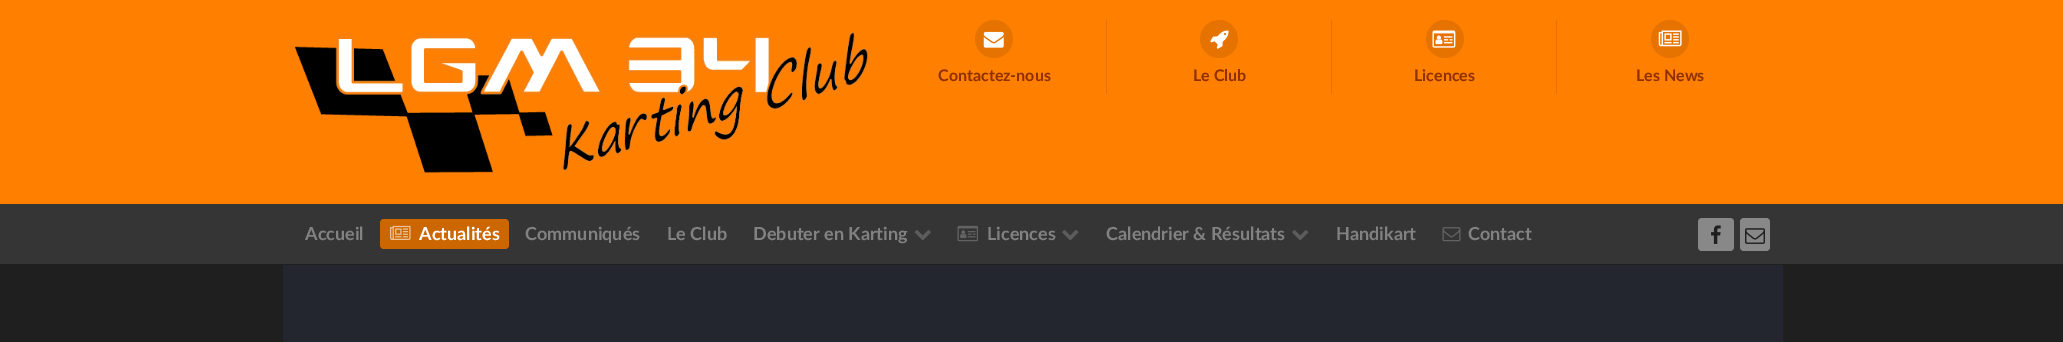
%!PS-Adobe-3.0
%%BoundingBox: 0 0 2063 342
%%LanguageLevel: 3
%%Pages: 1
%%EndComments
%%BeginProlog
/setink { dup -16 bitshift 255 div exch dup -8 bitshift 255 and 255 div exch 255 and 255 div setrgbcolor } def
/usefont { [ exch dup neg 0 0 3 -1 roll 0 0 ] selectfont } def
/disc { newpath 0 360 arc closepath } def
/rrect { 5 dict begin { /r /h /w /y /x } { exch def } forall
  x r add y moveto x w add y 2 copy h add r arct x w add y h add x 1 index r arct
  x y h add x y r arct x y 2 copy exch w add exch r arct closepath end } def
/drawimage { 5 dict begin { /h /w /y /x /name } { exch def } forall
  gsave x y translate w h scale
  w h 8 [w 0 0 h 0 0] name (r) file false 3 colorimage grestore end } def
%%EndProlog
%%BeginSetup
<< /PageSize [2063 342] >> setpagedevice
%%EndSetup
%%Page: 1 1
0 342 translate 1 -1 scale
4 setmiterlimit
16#1F1F1F setink
0 0 2063 342 rectfill
16#FF8000 setink
0 0 2063 204 rectfill
(img1.raw) 295 31 574 142 drawimage
16#E67300 setink
1106 20 1 74 rectfill
994 39 19 disc fill
(img2.raw) 983 31 21 17 drawimage
/Lato-Bold 16 usefont
16#8F3000 setink
938 81 moveto (Contactez-nous) show
16#E67300 setink
1331 20 1 74 rectfill
1219 39 19 disc fill
(img3.raw) 1210 30 19 19 drawimage
16#8F3000 setink
1193 81 moveto (Le Club) show
16#E67300 setink
1556 20 1 74 rectfill
1445 39 19 disc fill
(img4.raw) 1432 30 24 18 drawimage
16#8F3000 setink
1414 81 moveto (Licences) show
16#E67300 setink
1670 39 19 disc fill
(img5.raw) 1658 30 24 17 drawimage
16#8F3000 setink
1636 81 moveto (Les News) show
16#353535 setink
0 204 2063 60 rectfill
/Lato-Bold 18 usefont
16#828282 setink
305 240 moveto (Accueil) show
16#CC6600 setink
380 219 129 30 4 rrect fill
(img6.raw) 390 225 21 15 drawimage
16#FFFFFF setink
419 240 moveto (Actualités) show
16#828282 setink
[
    [(Communiqués) 525 240]
    [(Le Club) 667 240]
    [(Debuter en Karting) 753 240]
] { aload pop moveto show } forall
(img7.raw) 914 230 17 11 drawimage
(img8.raw) 957 225 21 17 drawimage
987 240 moveto (Licences) show
(img9.raw) 1062 230 17 11 drawimage
1106 240 moveto (Calendrier & Résultats) show
(img9.raw) 1292 230 17 11 drawimage
1336 240 moveto (Handikart) show
(img10.raw) 1442 227 19 15 drawimage
1468 240 moveto (Contact) show
16#888888 setink
1698 218 36 33 4 rrect fill
(img11.raw) 1711 225 10 19 drawimage
1740 218 30 33 4 rrect fill
(img12.raw) 1745 228 20 16 drawimage
16#23262F setink
283 265 1500 77 rectfill
showpage
%%EOF
